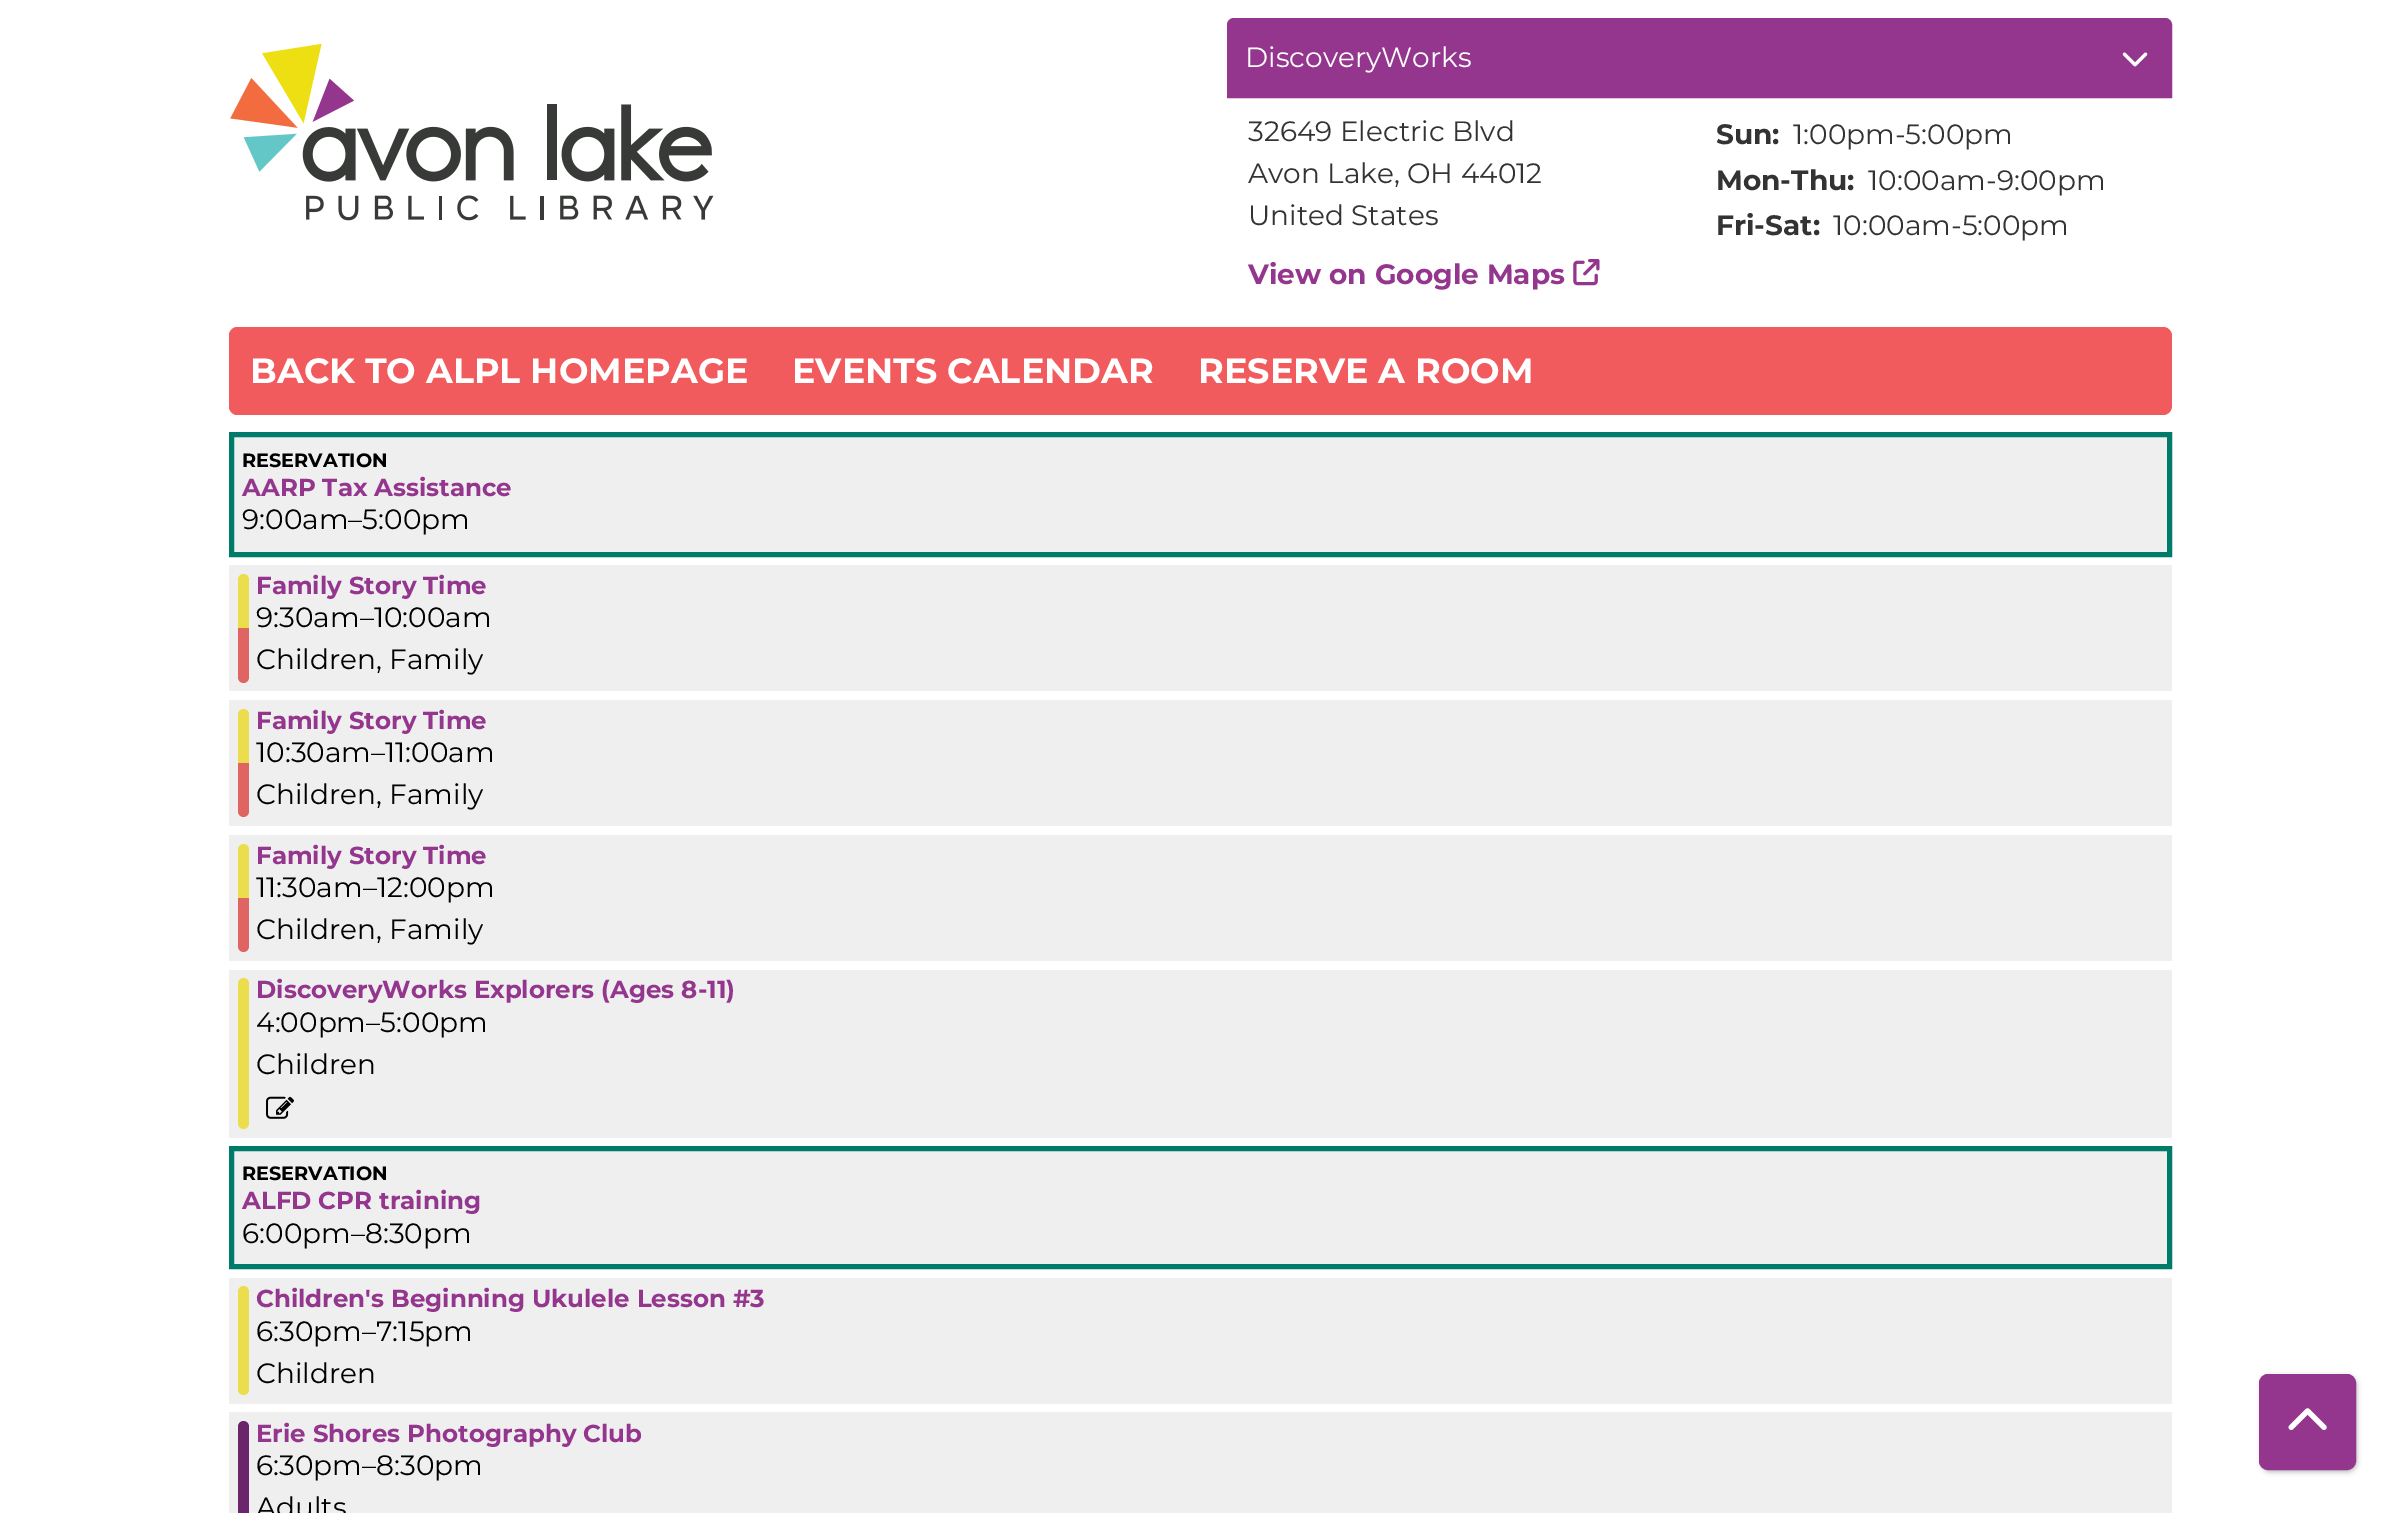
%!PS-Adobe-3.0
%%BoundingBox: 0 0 2398 1513
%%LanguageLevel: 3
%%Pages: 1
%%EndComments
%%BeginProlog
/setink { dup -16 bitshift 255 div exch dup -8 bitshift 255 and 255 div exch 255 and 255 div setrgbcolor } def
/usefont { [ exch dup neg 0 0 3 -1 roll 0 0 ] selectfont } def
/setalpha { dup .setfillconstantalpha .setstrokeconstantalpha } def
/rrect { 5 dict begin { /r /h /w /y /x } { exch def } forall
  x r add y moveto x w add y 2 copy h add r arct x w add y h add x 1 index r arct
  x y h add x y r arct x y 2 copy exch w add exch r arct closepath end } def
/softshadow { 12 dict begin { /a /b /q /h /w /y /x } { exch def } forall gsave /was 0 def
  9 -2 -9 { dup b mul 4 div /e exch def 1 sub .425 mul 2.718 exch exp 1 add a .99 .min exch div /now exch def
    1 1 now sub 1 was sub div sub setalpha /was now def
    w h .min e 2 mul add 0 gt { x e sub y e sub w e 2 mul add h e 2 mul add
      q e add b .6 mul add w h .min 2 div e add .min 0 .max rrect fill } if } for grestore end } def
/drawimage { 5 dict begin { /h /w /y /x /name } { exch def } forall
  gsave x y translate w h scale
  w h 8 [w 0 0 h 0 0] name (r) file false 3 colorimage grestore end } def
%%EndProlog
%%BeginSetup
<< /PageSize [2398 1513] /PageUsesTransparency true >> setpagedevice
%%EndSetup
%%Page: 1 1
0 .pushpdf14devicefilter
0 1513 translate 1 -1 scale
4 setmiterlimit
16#FFFFFF setink
0 0 2398 1513 rectfill
(img1.raw) 230 44 484 177 drawimage
16#94368E setink
1234 19 moveto 2165 19 lineto 2168 19 2170 21 2170 24 curveto 2170 96 lineto 1229 96 lineto 1229 24 lineto 1229 21 1231 19 1234 19 curveto closepath fill
(img2.raw) 2122 52 26 15 drawimage
2 setlinewidth
1234 19 moveto 2165 19 lineto 2168.5 19 2171 21.5 2171 25 curveto 2171 97 lineto 1228 97 lineto 1228 25 lineto 1228 21.5 1230.5 19 1234 19 curveto closepath stroke
/Montserrat-Regular 28 usefont
16#FFFFFF setink
1245 67 moveto (DiscoveryWorks) show
16#333333 setink
[
    [(32649 Electric Blvd) 1248 141]
    [(Avon Lake, OH 44012) 1248 183]
    [(United States) 1248 225]
] { aload pop moveto show } forall
/Montserrat-Bold 28 usefont
16#94368E setink
1248 284 moveto (View on Google Maps) show
(img3.raw) 1573 259 27 27 drawimage
16#333333 setink
1716 144 moveto (Sun:) show
/Montserrat-Regular 28 usefont
1793 144 moveto (1:00pm-5:00pm) show
/Montserrat-Bold 28 usefont
1716 190 moveto (Mon-Thu:) show
/Montserrat-Regular 28 usefont
1868 190 moveto (10:00am-9:00pm) show
/Montserrat-Bold 28 usefont
1716 235 moveto (Fri-Sat:) show
/Montserrat-Regular 28 usefont
1833 235 moveto (10:00am-5:00pm) show
16#F15B5D setink
229 327 1943 88 9 rrect fill
238 327 moveto 770 327 lineto 770 415 lineto 238 415 lineto 233 415 229 411 229 406 curveto 229 336 lineto 229 331 233 327 238 327 curveto closepath fill
/Montserrat-Bold 35 usefont
16#FFFFFF setink
[
    [(BACK TO ALPL HOMEPAGE) 250 383]
    [(EVENTS CALENDAR) 792 383]
    [(RESERVE A ROOM) 1198 383]
] { aload pop moveto show } forall
16#EFEFEF setink
231.5 434.5 moveto 2169.5 434.5 lineto 2169.5 554.5 lineto 231.5 554.5 lineto closepath gsave fill grestore
16#007B69 setink
5 setlinewidth
stroke
/Montserrat-Bold 19.25 usefont
16#000000 setink
242 467 moveto (RESERVATION) show
/Montserrat-Bold 24.5 usefont
16#94368E setink
242 496 moveto (AARP Tax Assistance) show
/Montserrat-Regular 28 usefont
16#000000 setink
242 529 moveto (9:00am–5:00pm) show
16#EFEFEF setink
229 565 1943 126 rectfill
16#EBDD4C setink
243.5 574 moveto 246.5 574 249 576.5 249 579.5 curveto 249 628 lineto 238 628 lineto 238 579.5 lineto 238 576.5 240.5 574 243.5 574 curveto closepath fill
16#E06462 setink
238 628 moveto 249 628 lineto 249 677.5 lineto 249 680.5 246.5 683 243.5 683 curveto 240.5 683 238 680.5 238 677.5 curveto closepath fill
/Montserrat-Bold 24.5 usefont
16#94368E setink
256 594 moveto (Family Story Time) show
/Montserrat-Regular 28 usefont
16#000000 setink
256 627 moveto (9:30am–10:00am) show
256 669 moveto (Children, Family) show
16#EFEFEF setink
229 700 1943 126 rectfill
16#EBDD4C setink
243.5 709 moveto 246.5 709 249 711.5 249 714.5 curveto 249 763 lineto 238 763 lineto 238 714.5 lineto 238 711.5 240.5 709 243.5 709 curveto closepath fill
16#E06462 setink
238 763 moveto 249 763 lineto 249 811.5 lineto 249 814.5 246.5 817 243.5 817 curveto 240.5 817 238 814.5 238 811.5 curveto closepath fill
/Montserrat-Bold 24.5 usefont
16#94368E setink
256 729 moveto (Family Story Time) show
/Montserrat-Regular 28 usefont
16#000000 setink
256 762 moveto (10:30am–11:00am) show
256 804 moveto (Children, Family) show
16#EFEFEF setink
229 835 1943 126 rectfill
16#EBDD4C setink
243.5 844 moveto 246.5 844 249 846.5 249 849.5 curveto 249 898 lineto 238 898 lineto 238 849.5 lineto 238 846.5 240.5 844 243.5 844 curveto closepath fill
16#E06462 setink
238 898 moveto 249 898 lineto 249 946.5 lineto 249 949.5 246.5 952 243.5 952 curveto 240.5 952 238 949.5 238 946.5 curveto closepath fill
/Montserrat-Bold 24.5 usefont
16#94368E setink
256 864 moveto (Family Story Time) show
/Montserrat-Regular 28 usefont
16#000000 setink
256 897 moveto (11:30am–12:00pm) show
256 939 moveto (Children, Family) show
16#EFEFEF setink
229 970 1943 168 rectfill
16#EBDD4C setink
238 978 11 151 5.5 rrect fill
/Montserrat-Bold 24.5 usefont
16#94368E setink
256 998 moveto (DiscoveryWorks Explorers \(Ages 8-11\)) show
/Montserrat-Regular 28 usefont
16#000000 setink
256 1032 moveto (4:00pm–5:00pm) show
256 1074 moveto (Children) show
(img4.raw) 266 1096 28 23 drawimage
16#EFEFEF setink
231.5 1148.5 moveto 2169.5 1148.5 lineto 2169.5 1266.5 lineto 231.5 1266.5 lineto closepath gsave fill grestore
16#007B69 setink
stroke
/Montserrat-Bold 19.25 usefont
16#000000 setink
242 1180 moveto (RESERVATION) show
/Montserrat-Bold 24.5 usefont
16#94368E setink
242 1209 moveto (ALFD CPR training) show
/Montserrat-Regular 28 usefont
16#000000 setink
242 1243 moveto (6:00pm–8:30pm) show
16#EFEFEF setink
229 1278 1943 126 rectfill
16#EBDD4C setink
238 1286 11 109 5.5 rrect fill
/Montserrat-Bold 24.5 usefont
16#94368E setink
256 1307 moveto (Children's Beginning Ukulele Lesson #3) show
/Montserrat-Regular 28 usefont
16#000000 setink
256 1341 moveto (6:30pm–7:15pm) show
256 1383 moveto (Children) show
16#EFEFEF setink
229 1412 1943 101 rectfill
16#6C246D setink
238 1421 11 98 5.5 rrect fill
/Montserrat-Bold 24.5 usefont
16#94368E setink
256 1442 moveto (Erie Shores Photography Club) show
/Montserrat-Regular 28 usefont
16#000000 setink
256 1475 moveto (6:30pm–8:30pm) show
256 1517 moveto (Adults) show
2261 1376 96 96 9 2.5 0.25 softshadow
16#94368E setink
2260 1375 95 94 8 rrect gsave fill grestore
2 setlinewidth
stroke
(img5.raw) 2288 1408 39 23 drawimage
.poppdf14devicefilter showpage
%%EOF
